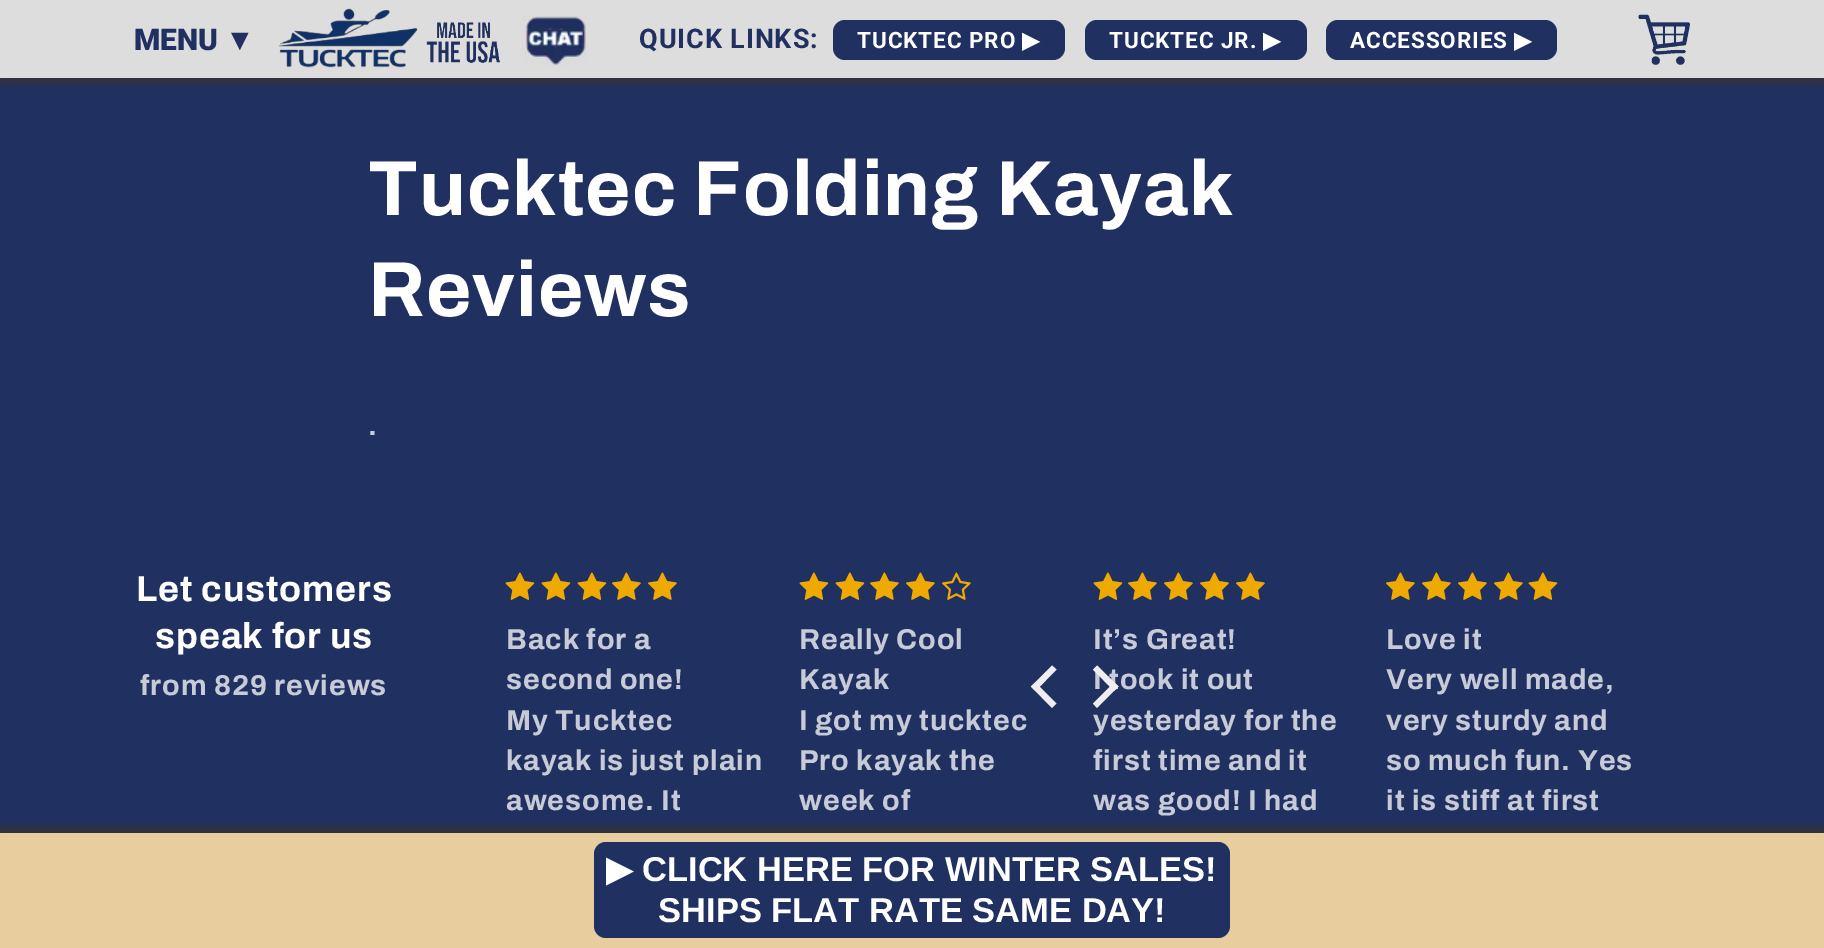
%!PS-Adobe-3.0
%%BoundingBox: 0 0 1824 948
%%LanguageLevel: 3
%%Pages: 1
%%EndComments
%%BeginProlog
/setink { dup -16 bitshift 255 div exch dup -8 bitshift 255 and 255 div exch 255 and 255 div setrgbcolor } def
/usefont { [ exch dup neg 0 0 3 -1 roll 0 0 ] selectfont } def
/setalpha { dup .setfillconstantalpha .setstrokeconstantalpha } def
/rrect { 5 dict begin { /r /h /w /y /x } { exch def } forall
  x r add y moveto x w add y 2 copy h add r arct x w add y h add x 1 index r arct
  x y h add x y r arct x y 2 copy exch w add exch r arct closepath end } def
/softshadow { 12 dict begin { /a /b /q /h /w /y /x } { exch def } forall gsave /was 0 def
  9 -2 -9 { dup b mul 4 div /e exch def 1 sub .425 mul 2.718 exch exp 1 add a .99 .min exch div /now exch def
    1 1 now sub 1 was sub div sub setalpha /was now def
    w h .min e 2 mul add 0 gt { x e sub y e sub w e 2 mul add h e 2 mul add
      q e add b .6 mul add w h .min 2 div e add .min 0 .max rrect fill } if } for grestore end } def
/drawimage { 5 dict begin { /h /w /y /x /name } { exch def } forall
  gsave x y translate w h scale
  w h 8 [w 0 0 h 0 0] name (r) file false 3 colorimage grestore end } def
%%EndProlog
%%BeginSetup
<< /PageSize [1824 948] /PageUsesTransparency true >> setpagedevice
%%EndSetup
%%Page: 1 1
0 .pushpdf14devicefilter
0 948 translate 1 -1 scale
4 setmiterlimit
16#203060 setink
0 0 1824 948 rectfill
16#333333 setink
0 5 1824 78 0 4.5 1 softshadow
16#DDDDDD setink
0 0 1824 78 rectfill
/Roboto-Black 30 usefont
16#203060 setink
134 50 moveto (MENU) show
/LiberationSans-Bold 30 usefont
225 50 moveto (▼) show
(img1.raw) 278 8 222 60 drawimage
(img2.raw) 522 15 65 51 drawimage
/Roboto-Bold 27 usefont
639 48 moveto 0.9 0 (QUICK LINKS:) ashow
833 20 232 40 12 rrect fill
/Roboto-Bold 22.5 usefont
16#FFFFFF setink
857 48 moveto 0.9 0 (TUCKTEC PRO) ashow
/DejaVuSans-Bold 22.5 usefont
1022 48 moveto 0.9 0 (▶) ashow
16#203060 setink
1085 20 222 40 12 rrect fill
/Roboto-Bold 22.5 usefont
16#FFFFFF setink
1109 48 moveto 0.9 0 (TUCKTEC JR.) ashow
/DejaVuSans-Bold 22.5 usefont
1263 48 moveto 0.9 0 (▶) ashow
16#203060 setink
1326 20 231 40 12 rrect fill
/Roboto-Bold 22.5 usefont
16#FFFFFF setink
1350 48 moveto 0.9 0 (ACCESSORIES) ashow
/DejaVuSans-Bold 22.5 usefont
1514 48 moveto 0.9 0 (▶) ashow
(img3.raw) 1638 14 52 51 drawimage
/Archivo-Bold 78 usefont
368 215 moveto 0.9 0 (Tucktec Folding Kayak) ashow
368 316 moveto 0.9 0 (Reviews) ashow
/Archivo-Bold 28.75 usefont
16#C7CBD7 setink
368 435 moveto 0.9 0 (.) ashow
/Archivo-Bold 36 usefont
16#FFFFFF setink
136 601 moveto 0.9 0 (Let customers) ashow
155 648 moveto 0.9 0 (speak for us) ashow
/Archivo-Bold 28.75 usefont
16#C7CBD7 setink
140 695 moveto 0.9 0 (from 829 reviews) ashow
(img4.raw) 505 572 30 28 drawimage
(img4.raw) 541 572 30 28 drawimage
(img4.raw) 577 572 30 28 drawimage
(img5.raw) 612 572 29 28 drawimage
(img5.raw) 648 572 29 28 drawimage
506 649 moveto 0.9 0 (Back for a) ashow
506 689 moveto 0.9 0 (second one!) ashow
506 730 moveto 0.9 0 (My Tucktec) ashow
506 770 moveto 0.9 0 (kayak is just plain) ashow
506 810 moveto 0.9 0 (awesome. It) ashow
(img4.raw) 799 572 30 28 drawimage
(img4.raw) 835 572 30 28 drawimage
(img5.raw) 870 572 29 28 drawimage
(img5.raw) 906 572 29 28 drawimage
(img6.raw) 942 572 29 28 drawimage
799 649 moveto 0.9 0 (Really Cool) ashow
799 689 moveto 0.9 0 (Kayak) ashow
799 730 moveto 0.9 0 (I got my tucktec) ashow
799 770 moveto 0.9 0 (Pro kayak the) ashow
799 810 moveto 0.9 0 (week of) ashow
(img4.raw) 1093 572 30 28 drawimage
(img5.raw) 1128 572 29 28 drawimage
(img5.raw) 1164 572 29 28 drawimage
(img5.raw) 1200 572 29 28 drawimage
(img5.raw) 1236 572 29 28 drawimage
1093 649 moveto 0.9 0 (It’s Great!) ashow
1093 689 moveto 0.9 0 (I took it out) ashow
1093 730 moveto 0.9 0 (yesterday for the) ashow
1093 770 moveto 0.9 0 (first time and it) ashow
1093 810 moveto 0.9 0 (was good! I had) ashow
(img5.raw) 1386 572 29 28 drawimage
(img5.raw) 1422 572 29 28 drawimage
(img5.raw) 1458 572 29 28 drawimage
(img5.raw) 1494 572 29 28 drawimage
(img4.raw) 1528 572 30 28 drawimage
1386 649 moveto 0.9 0 (Love it) ashow
1386 689 moveto 0.9 0 (Very well made,) ashow
1386 730 moveto 0.9 0 (very sturdy and) ashow
1386 770 moveto 0.9 0 (so much fun. Yes) ashow
1386 810 moveto 0.9 0 (it is stiff at first) ashow
16#EEEEEE setink
1031 686.5 moveto 1052 665.5 lineto 1056.5 669.5 lineto 1035.5 691 lineto closepath fill
1031 686.5 moveto 1035.5 682.5 lineto 1056.5 703.5 lineto 1052 708 lineto closepath fill
1093 669.5 moveto 1097 665.5 lineto 1118.5 686.5 lineto 1114 691 lineto closepath fill
1093 703.5 moveto 1114 682.5 lineto 1118.5 686.5 lineto 1097 708 lineto closepath fill
16#333333 setink
0 828 1824 116 0 4.5 1 softshadow
16#E8CE9E setink
0 833 1824 115 rectfill
16#203060 setink
594 842 636 96 12 rrect fill
/DejaVuSans-Bold 34.5 usefont
16#FFFFFF setink
606 881 moveto (▶) show
/LiberationSans-Bold 34.5 usefont
642 881 moveto (CLICK HERE FOR WINTER SALES!) show
658 922 moveto (SHIPS FLAT RATE SAME DAY!) show
.poppdf14devicefilter showpage
%%EOF
